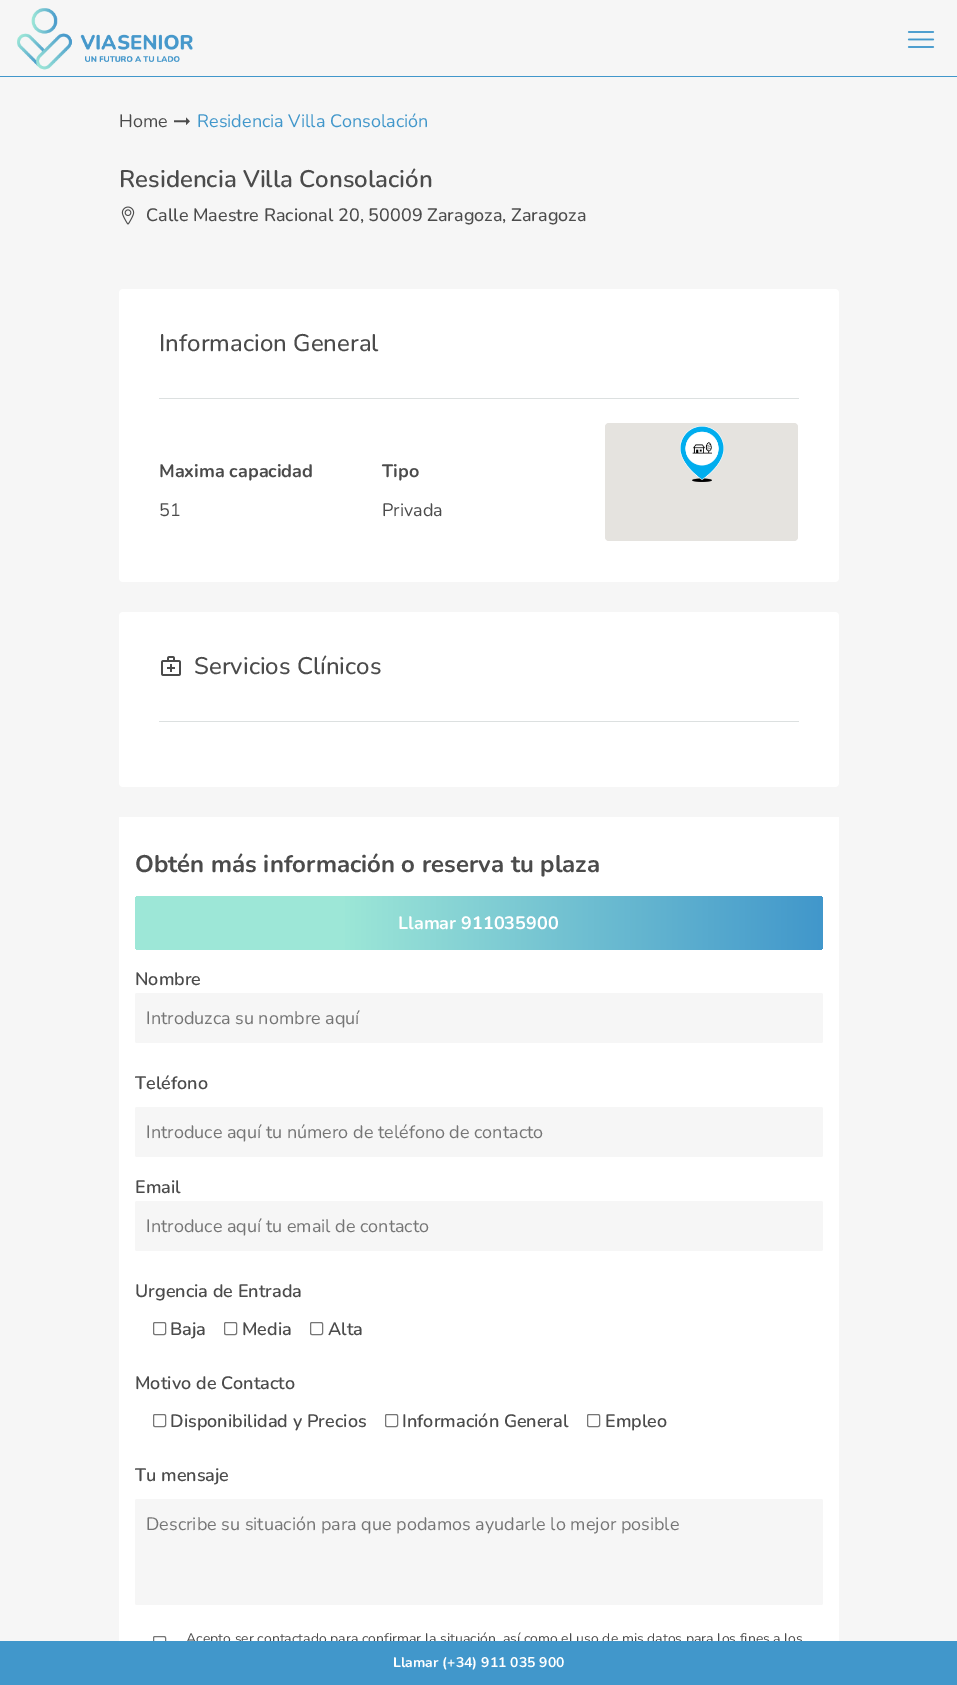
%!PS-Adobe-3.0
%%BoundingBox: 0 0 957 1685
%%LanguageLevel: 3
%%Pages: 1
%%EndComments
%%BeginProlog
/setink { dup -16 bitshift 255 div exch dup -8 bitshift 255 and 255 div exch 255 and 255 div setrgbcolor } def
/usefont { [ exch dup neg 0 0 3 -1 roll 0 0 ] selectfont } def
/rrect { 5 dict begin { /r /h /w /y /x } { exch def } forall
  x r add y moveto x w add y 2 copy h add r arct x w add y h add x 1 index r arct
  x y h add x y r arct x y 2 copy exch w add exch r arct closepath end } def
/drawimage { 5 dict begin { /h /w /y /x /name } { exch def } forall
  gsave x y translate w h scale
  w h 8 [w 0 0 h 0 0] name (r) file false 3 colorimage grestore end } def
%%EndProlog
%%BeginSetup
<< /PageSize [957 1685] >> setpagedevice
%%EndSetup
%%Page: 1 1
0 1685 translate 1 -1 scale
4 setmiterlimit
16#F6F6F6 setink
0 0 957 1685 rectfill
/Nunito-Regular 18 usefont
16#4B4B4B setink
119 127 moveto (Home) show
(img1.raw) 174 117 16 8 drawimage
16#4197CB setink
197 127 moveto (Residencia Villa Consolación) show
/Nunito-SemiBold 24 usefont
16#4B4B4B setink
119 187 moveto (Residencia Villa Consolación) show
(img2.raw) 121 206 14 19 drawimage
/Nunito-Medium 18 usefont
146 221 moveto (Calle Maestre Racional 20, 50009 Zaragoza, Zaragoza) show
16#FFFFFF setink
119 289 720 293 4 rrect fill
16#DCE0E0 setink
159 398 640 1 rectfill
/Nunito-Medium 24 usefont
16#4B4B4B setink
159 351 moveto (Informacion General) show
/Nunito-Bold 18 usefont
159 477 moveto (Maxima capacidad) show
/Nunito-Regular 18 usefont
159 516 moveto (51) show
/Nunito-Bold 18 usefont
382 477 moveto (Tipo) show
/Nunito-Regular 18 usefont
382 516 moveto (Privada) show
16#E5E3DF setink
605 423 193 118 4 rrect fill
(img3.raw) 680 426 44 56 drawimage
16#FFFFFF setink
119 612 720 175 4 rrect fill
16#DCE0E0 setink
159 721 640 1 rectfill
(img4.raw) 161 656 20 20 drawimage
/Nunito-Medium 24 usefont
16#4B4B4B setink
194 674 moveto (Servicios Clínicos) show
16#FFFFFF setink
119 817 720 824 rectfill
/Nunito-Bold 24 usefont
16#4B4B4B setink
135 872 moveto (Obtén más información o reserva tu plaza) show
gsave 135 896 688 54 4 rrect clip newpath
<< /ShadingType 2 /ColorSpace /DeviceRGB /Coords [135 923 823 923] /Extend [true true] /Function << /FunctionType 3 /Domain [0 1] /Functions [<< /FunctionType 2 /Domain [0 1] /C0 [0.616 0.906 0.843] /C1 [0.616 0.906 0.843] /N 1 >> << /FunctionType 2 /Domain [0 1] /C0 [0.616 0.906 0.843] /C1 [0.255 0.592 0.796] /N 1 >>] /Bounds [0.3] /Encode [0 1 0 1] >> >> shfill grestore
/Nunito-Bold 18 usefont
16#FFFFFF setink
398 929 moveto (Llamar 911035900) show
/Nunito-SemiBold 18 usefont
16#4B4B4B setink
135 985 moveto (Nombre) show
16#F6F6F6 setink
135 993 688 50 2 rrect fill
/Nunito-Regular 18 usefont
16#757575 setink
146 1024 moveto (Introduzca su nombre aquí) show
/Nunito-SemiBold 18 usefont
16#4B4B4B setink
135 1089 moveto (Teléfono) show
16#F6F6F6 setink
135 1107 688 50 2 rrect fill
/Nunito-Regular 18 usefont
16#757575 setink
146 1138 moveto (Introduce aquí tu número de teléfono de contacto) show
/Nunito-SemiBold 18 usefont
16#4B4B4B setink
135 1193 moveto (Email) show
16#F6F6F6 setink
135 1201 688 50 2 rrect fill
/Nunito-Regular 18 usefont
16#757575 setink
146 1232 moveto (Introduce aquí tu email de contacto) show
/Nunito-SemiBold 18 usefont
16#4B4B4B setink
135 1297 moveto (Urgencia de Entrada) show
16#767676 setink
153.5 1322.5 12 12 1.5 rrect stroke
16#4B4B4B setink
170 1335 moveto (Baja) show
16#767676 setink
224.5 1322.5 12 12 1.5 rrect stroke
16#4B4B4B setink
242 1335 moveto (Media) show
16#767676 setink
310.5 1322.5 12 12 1.5 rrect stroke
16#4B4B4B setink
328 1335 moveto (Alta) show
135 1389 moveto (Motivo de Contacto) show
16#767676 setink
153.5 1414.5 12 12 1.5 rrect stroke
16#4B4B4B setink
170 1427 moveto (Disponibilidad y Precios) show
16#767676 setink
385.5 1414.5 12 12 1.5 rrect stroke
16#4B4B4B setink
402 1427 moveto (Información General) show
16#767676 setink
587.5 1414.5 12 12 1.5 rrect stroke
16#4B4B4B setink
605 1427 moveto (Empleo) show
135 1481 moveto (Tu mensaje) show
16#F6F6F6 setink
135 1499 688 106 2 rrect fill
/Nunito-Regular 18 usefont
16#757575 setink
146 1530 moveto (Describe su situación para que podamos ayudarle lo mejor posible) show
16#767676 setink
153.5 1636.5 12 12 1.5 rrect stroke
/Nunito-Regular 14 usefont
16#4B4B4B setink
186 1643 moveto (Acepto ser contactado para confirmar la situación, así como el uso de mis datos para los fines a los) show
16#4197CB setink
0 76 957 1 rectfill
(img5.raw) 17 8 176 62 drawimage
(img6.raw) 907 31 28 17 drawimage
0 1641 957 44 rectfill
/Nunito-Bold 14 usefont
16#FFFFFF setink
393 1667 moveto (Llamar \(+34\) 911 035 900) show
showpage
%%EOF
